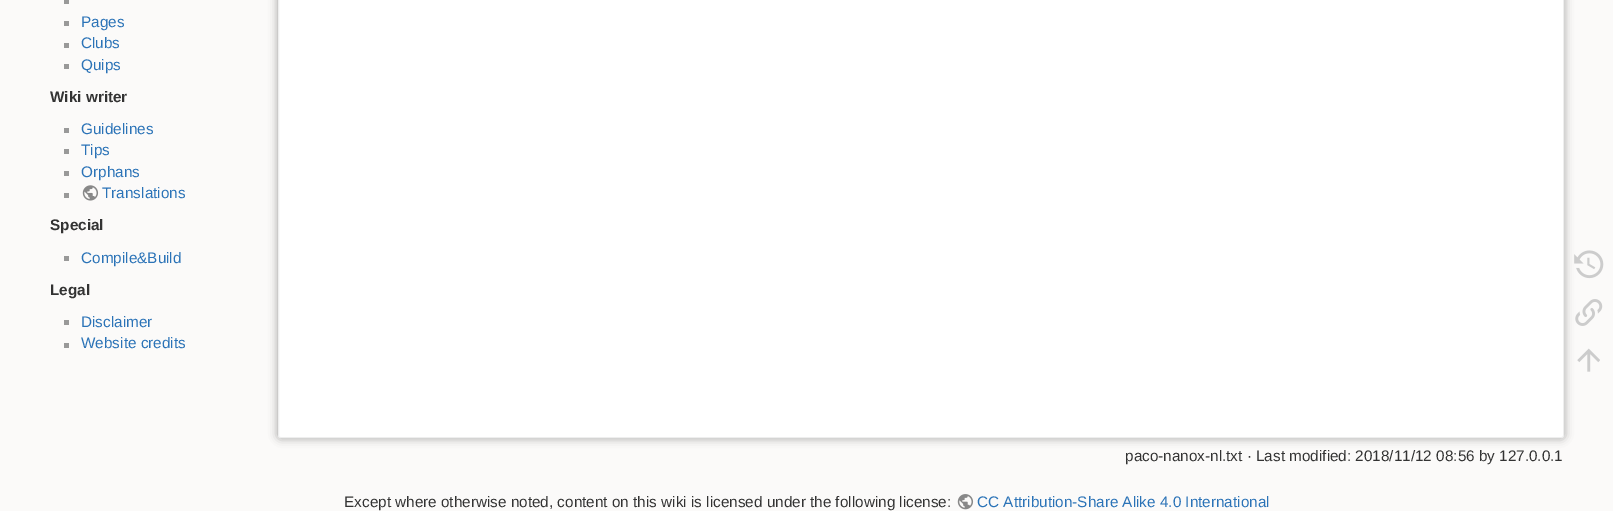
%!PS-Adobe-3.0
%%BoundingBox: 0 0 1613 511
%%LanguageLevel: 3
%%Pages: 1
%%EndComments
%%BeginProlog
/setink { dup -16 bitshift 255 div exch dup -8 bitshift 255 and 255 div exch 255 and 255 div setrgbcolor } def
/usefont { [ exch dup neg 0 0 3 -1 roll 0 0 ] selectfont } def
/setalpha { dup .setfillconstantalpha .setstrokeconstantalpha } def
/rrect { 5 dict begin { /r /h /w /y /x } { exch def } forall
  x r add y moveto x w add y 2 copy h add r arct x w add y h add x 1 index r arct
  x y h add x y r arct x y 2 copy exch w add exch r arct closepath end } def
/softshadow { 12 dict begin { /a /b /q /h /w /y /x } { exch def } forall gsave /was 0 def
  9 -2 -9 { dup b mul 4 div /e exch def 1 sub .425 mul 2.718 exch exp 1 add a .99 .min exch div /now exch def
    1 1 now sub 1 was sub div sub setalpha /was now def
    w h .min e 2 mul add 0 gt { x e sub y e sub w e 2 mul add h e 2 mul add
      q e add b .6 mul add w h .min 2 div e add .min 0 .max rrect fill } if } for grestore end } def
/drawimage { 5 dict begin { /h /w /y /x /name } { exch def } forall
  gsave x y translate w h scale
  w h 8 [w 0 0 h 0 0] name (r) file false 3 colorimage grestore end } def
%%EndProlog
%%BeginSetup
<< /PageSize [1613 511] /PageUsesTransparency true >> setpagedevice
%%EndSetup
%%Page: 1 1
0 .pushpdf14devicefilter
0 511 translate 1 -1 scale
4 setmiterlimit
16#FBFAF9 setink
0 0 1613 511 rectfill
16#999999 setink
64 0 5 4 rectfill
64 21 5 5 rectfill
/LiberationSans-Regular 15.3 usefont
16#2B73B7 setink
81 27 moveto (Pages) show
16#999999 setink
64 43 5 5 rectfill
16#2B73B7 setink
81 48 moveto (Clubs) show
16#999999 setink
64 64 5 5 rectfill
16#2B73B7 setink
81 70 moveto (Quips) show
/LiberationSans-Bold 15.3 usefont
16#333333 setink
50 102 moveto (Wiki writer) show
16#999999 setink
64 128 5 5 rectfill
/LiberationSans-Regular 15.3 usefont
16#2B73B7 setink
81 134 moveto (Guidelines) show
16#999999 setink
64 149 5 5 rectfill
16#2B73B7 setink
81 155 moveto (Tips) show
16#999999 setink
64 171 5 5 rectfill
16#2B73B7 setink
81 177 moveto (Orphans) show
16#999999 setink
64 193 5 5 rectfill
(img1.raw) 82 185 17 16 drawimage
16#2B73B7 setink
102 198 moveto (Translations) show
/LiberationSans-Bold 15.3 usefont
16#333333 setink
50 230 moveto (Special) show
16#999999 setink
64 256 5 5 rectfill
/LiberationSans-Regular 15.3 usefont
16#2B73B7 setink
81 263 moveto (Compile&Build) show
/LiberationSans-Bold 15.3 usefont
16#333333 setink
50 295 moveto (Legal) show
16#999999 setink
64 320 5 5 rectfill
/LiberationSans-Regular 15.3 usefont
16#2B73B7 setink
81 327 moveto (Disclaimer) show
16#999999 setink
64 343 5 5 rectfill
16#2B73B7 setink
81 348 moveto (Website credits) show
16#999999 setink
278 -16 1286 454 2.5 4.5 1 softshadow
(img2.raw) 1574 250 30 29 drawimage
(img3.raw) 1575 299 28 27 drawimage
(img4.raw) 1577 348 23 24 drawimage
16#FFFFFF setink
278.5 -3.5 1285 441 2 rrect gsave fill grestore
16#EEEEEE setink
stroke
16#333333 setink
1125 461 moveto (paco-nanox-nl.txt · Last modified: 2018/11/12 08:56 by 127.0.0.1) show
344 507 moveto (Except where otherwise noted, content on this wiki is licensed under the following license:) show
(img5.raw) 957 494 17 16 drawimage
16#2B73B7 setink
977 507 moveto (CC Attribution-Share Alike 4.0 International) show
.poppdf14devicefilter showpage
%%EOF
